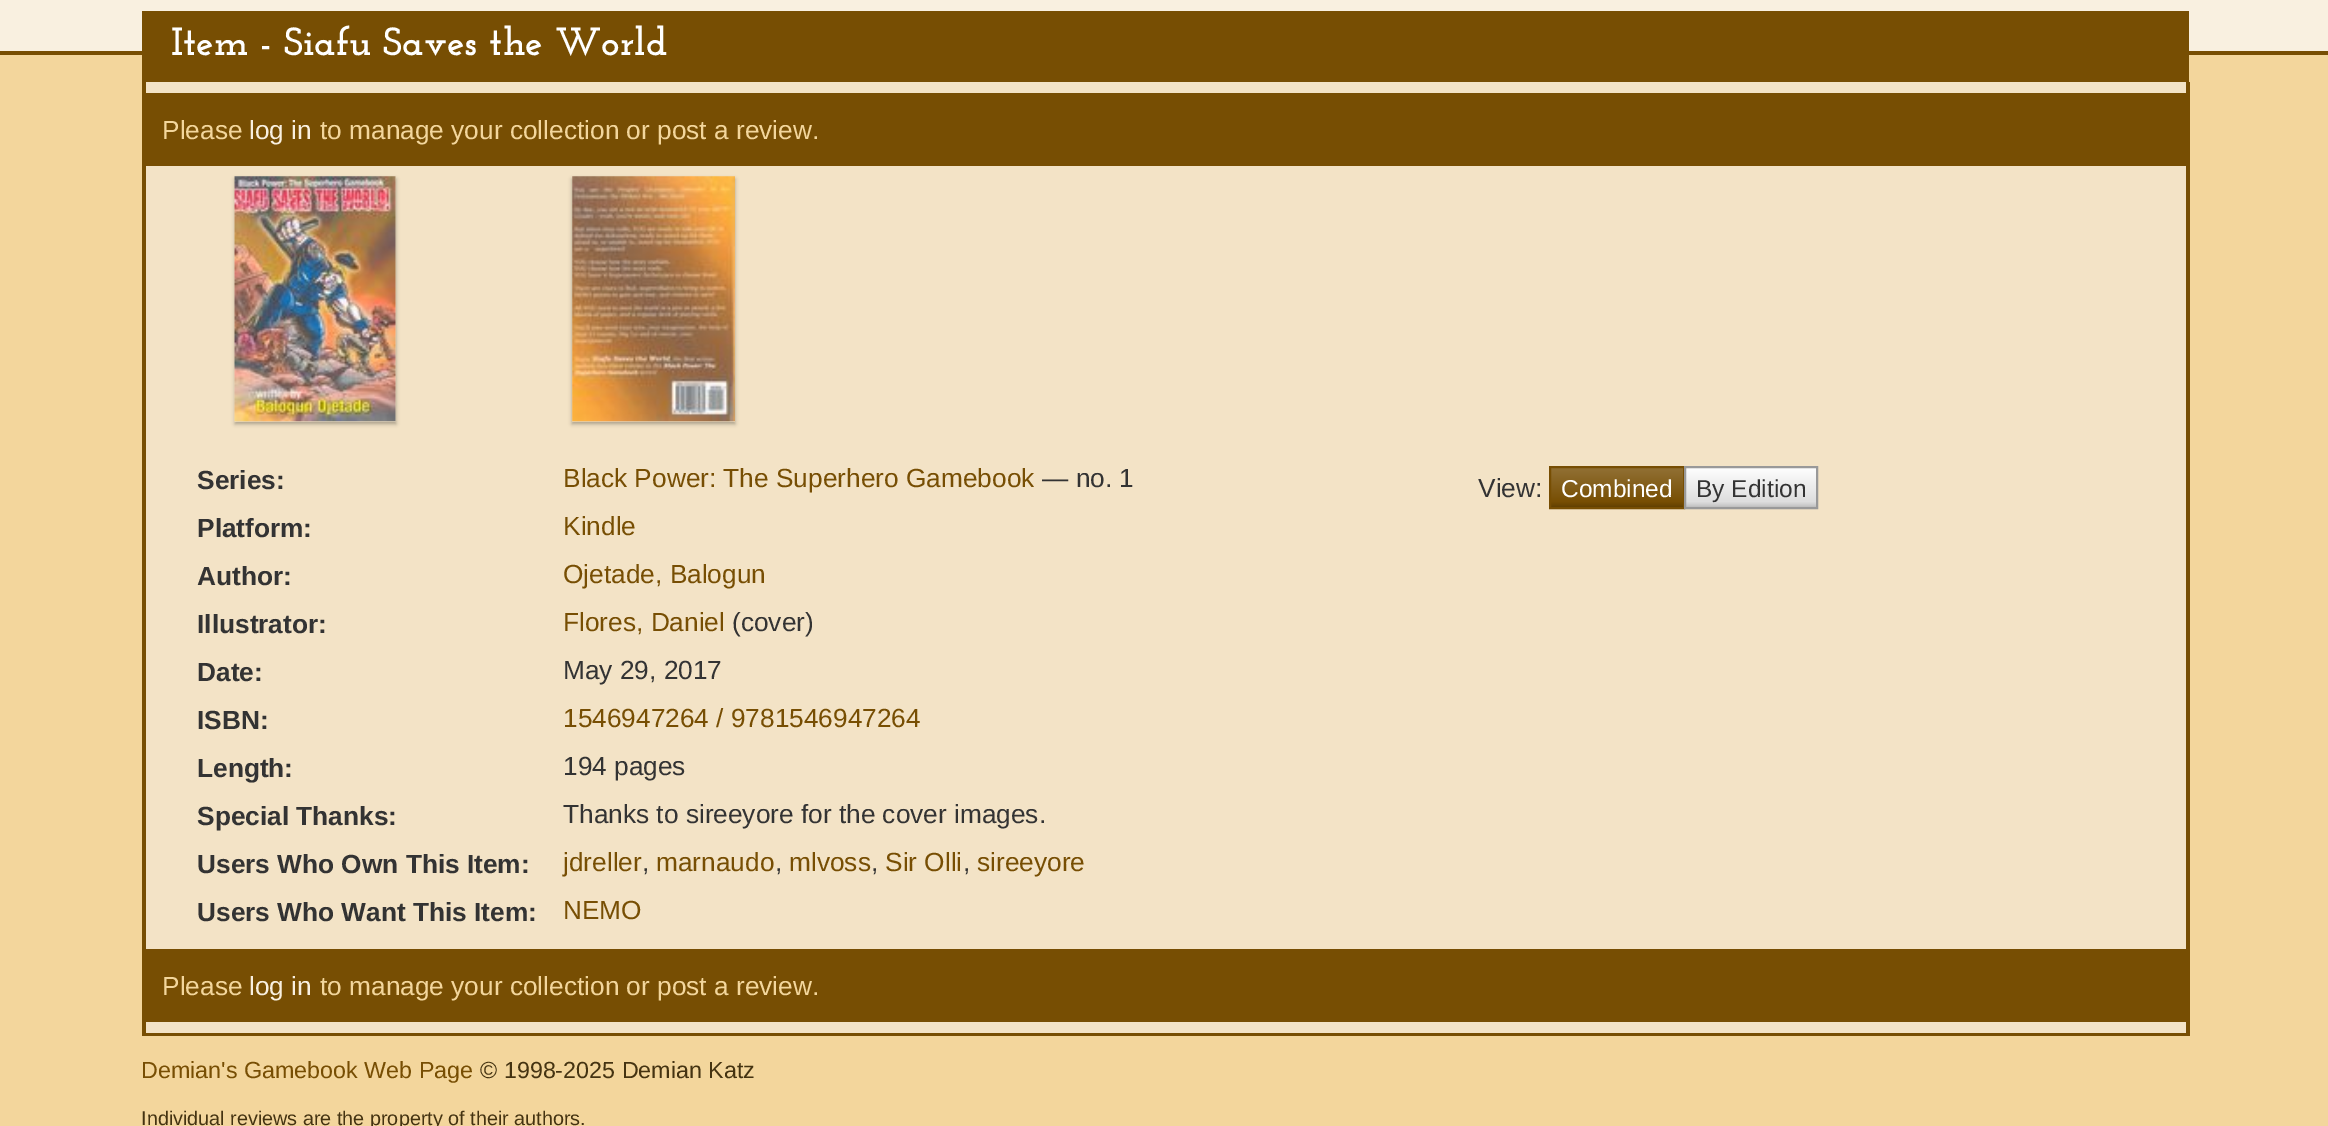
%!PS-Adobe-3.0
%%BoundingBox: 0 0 2328 1126
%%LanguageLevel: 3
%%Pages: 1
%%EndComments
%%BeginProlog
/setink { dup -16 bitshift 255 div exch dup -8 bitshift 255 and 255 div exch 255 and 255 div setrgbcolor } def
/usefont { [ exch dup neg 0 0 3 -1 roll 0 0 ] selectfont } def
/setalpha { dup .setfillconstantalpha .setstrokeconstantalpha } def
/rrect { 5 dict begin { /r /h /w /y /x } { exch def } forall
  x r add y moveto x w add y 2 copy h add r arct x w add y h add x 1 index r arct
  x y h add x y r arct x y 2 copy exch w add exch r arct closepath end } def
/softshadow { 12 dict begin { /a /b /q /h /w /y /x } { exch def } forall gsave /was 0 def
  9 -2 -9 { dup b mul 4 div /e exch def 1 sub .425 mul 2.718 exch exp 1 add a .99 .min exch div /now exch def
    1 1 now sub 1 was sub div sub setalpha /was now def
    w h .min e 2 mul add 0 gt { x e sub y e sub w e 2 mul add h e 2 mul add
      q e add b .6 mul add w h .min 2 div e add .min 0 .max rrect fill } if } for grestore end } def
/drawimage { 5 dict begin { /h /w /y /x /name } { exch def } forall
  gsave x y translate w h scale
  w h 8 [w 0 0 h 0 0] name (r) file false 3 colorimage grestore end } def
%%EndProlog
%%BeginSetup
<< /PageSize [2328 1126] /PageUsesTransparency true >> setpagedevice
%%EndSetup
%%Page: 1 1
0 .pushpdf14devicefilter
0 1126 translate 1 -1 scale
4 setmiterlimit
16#F3D69C setink
0 0 2328 1126 rectfill
[
    [0 0 2328 51 16#F9F0E0]
    [0 51 2328 4 16#774E03]
    [146 82 2040 951 16#F3E3C6]
    [142 11 2047 71 16#774E03]
] { aload pop setink rectfill } forall
/JosefinSlab-Bold 39.4 usefont
16#FFFFFF setink
171 55 moveto (Item - Siafu Saves the World) show
[
    [2186 82 4 954 16#774E03]
    [142 1033 2047 3 16#774E03]
    [142 82 4 954 16#774E03]
    [146 93 2040 73 16#774E03]
] { aload pop setink rectfill } forall
/LiberationSans-Regular 26.25 usefont
16#F3D69C setink
162 139 moveto (Please) show
16#F9F0E0 setink
249 139 moveto (log in) show
16#F3D69C setink
320 139 moveto (to manage your collection or post a review.) show
16#000000 setink
235 179 161 245 0 2 0.3 softshadow
(img1.raw) 234 176 162 246 drawimage
572 179 163 245 0 2 0.3 softshadow
(img2.raw) 572 176 163 246 drawimage
/LiberationSans-Bold 26.25 usefont
16#333333 setink
197 489 moveto (Series:) show
/LiberationSans-Regular 26.25 usefont
16#774E03 setink
563 487 moveto (Black Power: The Superhero Gamebook) show
16#333333 setink
1042 487 moveto (— no. 1) show
/LiberationSans-Bold 26.25 usefont
197 537 moveto (Platform:) show
/LiberationSans-Regular 26.25 usefont
16#774E03 setink
563 535 moveto (Kindle) show
/LiberationSans-Bold 26.25 usefont
16#333333 setink
197 585 moveto (Author:) show
/LiberationSans-Regular 26.25 usefont
16#774E03 setink
563 583 moveto (Ojetade, Balogun) show
/LiberationSans-Bold 26.25 usefont
16#333333 setink
197 633 moveto (Illustrator:) show
/LiberationSans-Regular 26.25 usefont
16#774E03 setink
563 631 moveto (Flores, Daniel) show
16#333333 setink
732 631 moveto (\(cover\)) show
/LiberationSans-Bold 26.25 usefont
197 681 moveto (Date:) show
/LiberationSans-Regular 26.25 usefont
563 679 moveto (May 29, 2017) show
/LiberationSans-Bold 26.25 usefont
197 729 moveto (ISBN:) show
/LiberationSans-Regular 26.25 usefont
16#774E03 setink
563 727 moveto (1546947264 / 9781546947264) show
/LiberationSans-Bold 26.25 usefont
16#333333 setink
197 777 moveto (Length:) show
/LiberationSans-Regular 26.25 usefont
563 775 moveto (194 pages) show
/LiberationSans-Bold 26.25 usefont
197 825 moveto (Special Thanks:) show
/LiberationSans-Regular 26.25 usefont
563 823 moveto (Thanks to sireeyore for the cover images.) show
/LiberationSans-Bold 26.25 usefont
197 873 moveto (Users Who Own This Item:) show
/LiberationSans-Regular 26.25 usefont
16#774E03 setink
563 871 moveto (jdreller) show
16#333333 setink
642 871 moveto (,) show
16#774E03 setink
656 871 moveto (marnaudo) show
16#333333 setink
775 871 moveto (,) show
16#774E03 setink
789 871 moveto (mlvoss) show
16#333333 setink
871 871 moveto (,) show
16#774E03 setink
885 871 moveto (Sir Olli) show
16#333333 setink
963 871 moveto (,) show
16#774E03 setink
977 871 moveto (sireeyore) show
/LiberationSans-Bold 26.25 usefont
16#333333 setink
197 921 moveto (Users Who Want This Item:) show
/LiberationSans-Regular 26.25 usefont
16#774E03 setink
563 919 moveto (NEMO) show
16#333333 setink
1478 497 moveto (View:) show
gsave 1551 468 moveto 1683 468 lineto 1683 507 lineto 1551 507 lineto closepath clip newpath
<< /ShadingType 2 /ColorSpace /DeviceRGB /Coords [1617 467 1617 508] /Extend [true true] /Function << /FunctionType 3 /Domain [0 1] /Functions [<< /FunctionType 2 /Domain [0 1] /C0 [0.573 0.443 0.208] /C1 [0.467 0.306 0.012] /N 1 >> << /FunctionType 2 /Domain [0 1] /C0 [0.467 0.306 0.012] /C1 [0.373 0.243 0.008] /N 1 >>] /Bounds [0.85] /Encode [0 1 0 1] >> >> shfill grestore
16#774E03 setink
2 setlinewidth
1550 467 134 41 rectstroke
/LiberationSans-Regular 24.5 usefont
16#FFFFFF setink
1561 497 moveto (Combined) show
gsave 1686 468 moveto 1816 468 lineto 1816 507 lineto 1686 507 lineto closepath clip newpath
<< /ShadingType 2 /ColorSpace /DeviceRGB /Coords [1751 467 1751 508] /Extend [true true] /Function << /FunctionType 3 /Domain [0 1] /Functions [<< /FunctionType 2 /Domain [0 1] /C0 [1 1 1] /C1 [0.867 0.867 0.867] /N 1 >> << /FunctionType 2 /Domain [0 1] /C0 [0.867 0.867 0.867] /C1 [0.733 0.733 0.733] /N 1 >>] /Bounds [0.85] /Encode [0 1 0 1] >> >> shfill grestore
16#999999 setink
1685 467 132 41 rectstroke
16#333333 setink
1696 497 moveto (By Edition) show
16#774E03 setink
146 949 2040 73 rectfill
/LiberationSans-Regular 26.25 usefont
16#F3D69C setink
162 995 moveto (Please) show
16#F9F0E0 setink
249 995 moveto (log in) show
16#F3D69C setink
320 995 moveto (to manage your collection or post a review.) show
/LiberationSans-Regular 23.3 usefont
16#774E03 setink
141 1078 moveto (Demian's Gamebook Web Page) show
16#443311 setink
480 1078 moveto (© 1998-2025 Demian Katz) show
/LiberationSans-Regular 19.8 usefont
141 1125 moveto (Individual reviews are the property of their authors.) show
.poppdf14devicefilter showpage
%%EOF
